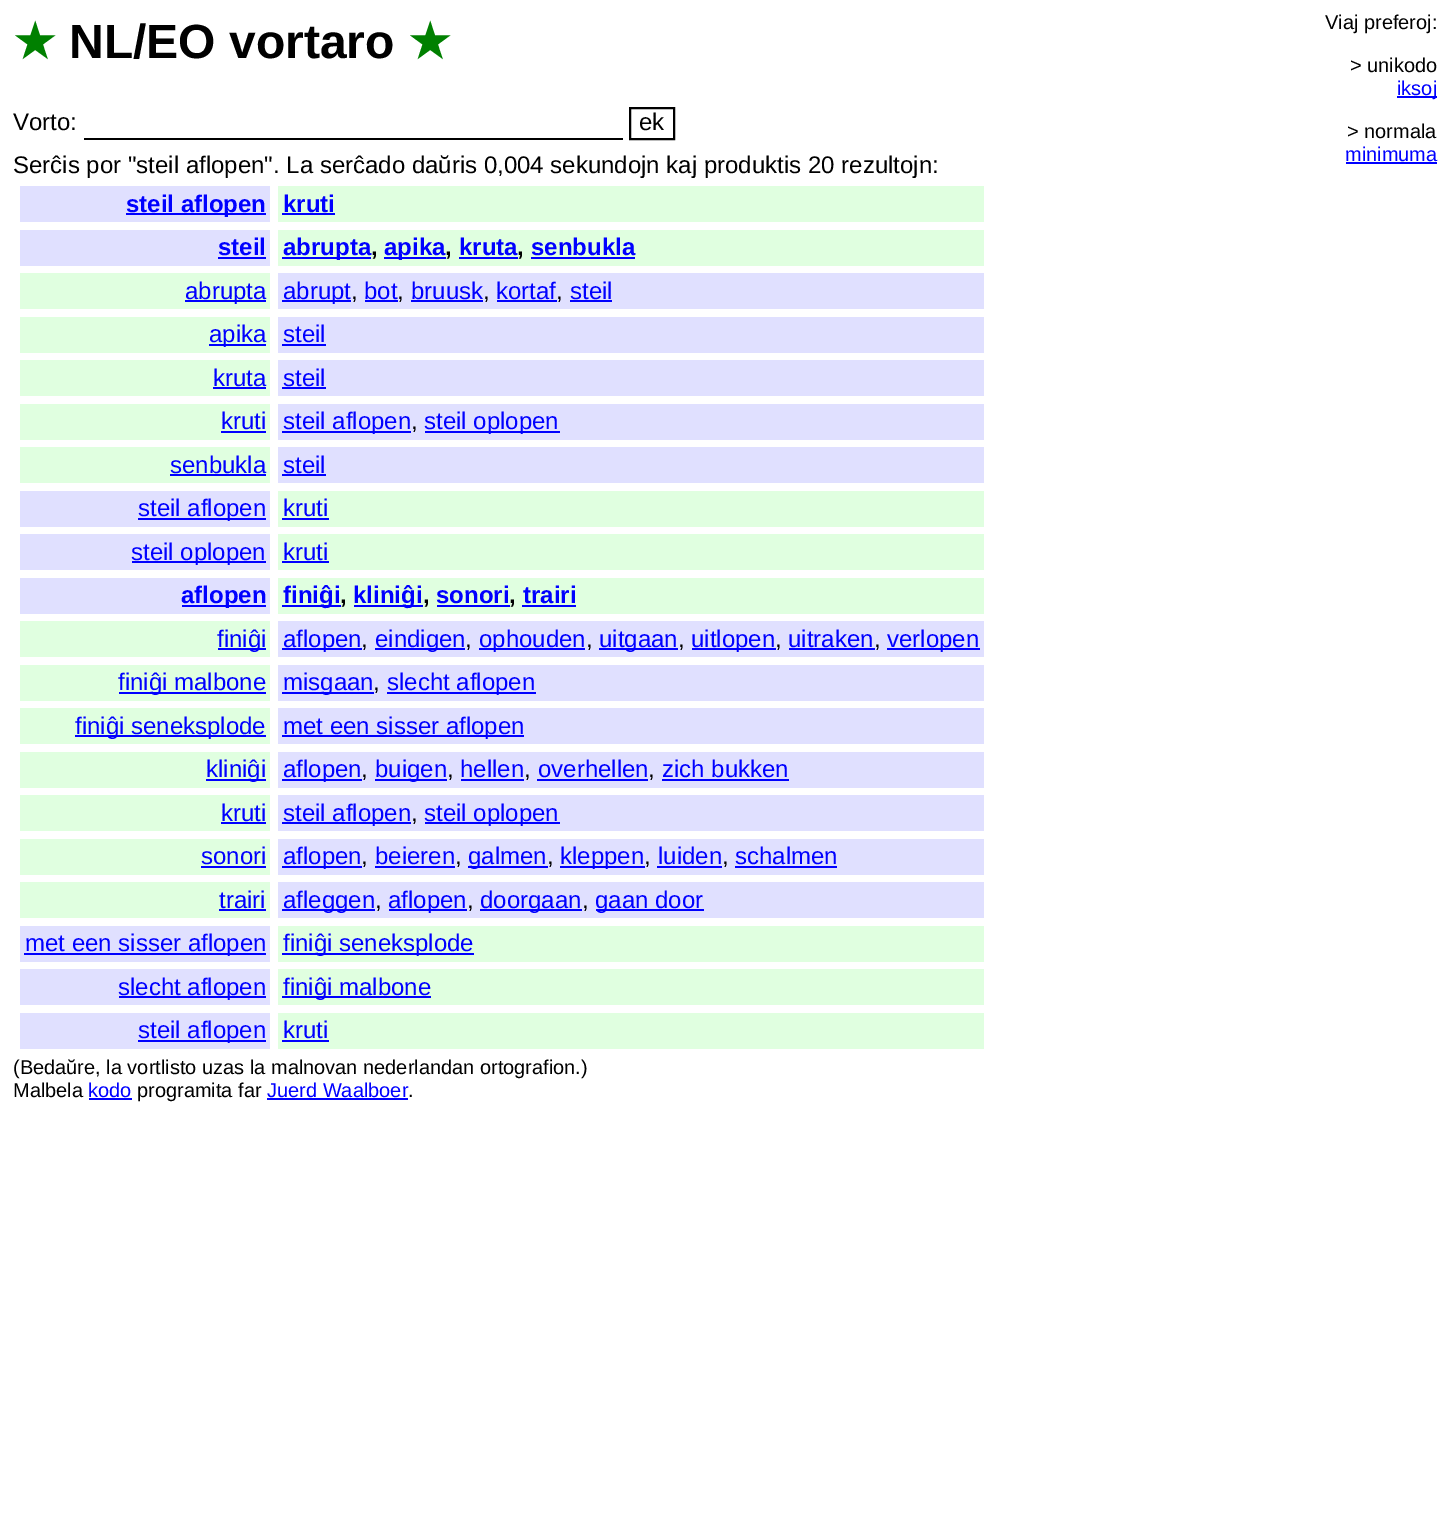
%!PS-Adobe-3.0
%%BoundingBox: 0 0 1447 1525
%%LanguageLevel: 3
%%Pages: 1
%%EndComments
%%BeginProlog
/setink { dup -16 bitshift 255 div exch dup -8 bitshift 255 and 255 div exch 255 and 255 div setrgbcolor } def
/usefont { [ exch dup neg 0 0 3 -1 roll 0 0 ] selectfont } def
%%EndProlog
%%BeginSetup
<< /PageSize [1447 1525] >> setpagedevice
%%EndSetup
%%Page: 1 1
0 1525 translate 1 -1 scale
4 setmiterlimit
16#FFFFFF setink
0 0 1447 1525 rectfill
/DejaVuSans-Bold 48 usefont
16#008000 setink
13 58 moveto (★) show
/LiberationSans-Bold 48 usefont
16#000000 setink
69 58 moveto (NL/EO vortaro) show
/DejaVuSans-Bold 48 usefont
16#008000 setink
408 58 moveto (★) show
/LiberationSans-Regular 20 usefont
16#000000 setink
1325 29 moveto (Viaj preferoj:) show
1350 72 moveto (> unikodo) show
16#0000FF setink
1397 96 40 2 rectfill
1397 95 moveto (iksoj) show
16#000000 setink
1347 138 moveto (> normala) show
16#0000FF setink
1345 161 moveto (minimuma) show
1346 162 91 2 rectfill
/LiberationSans-Regular 24 usefont
16#000000 setink
13 130 moveto (Vorto:) show
2 setlinewidth
630 108 44 31 rectstroke
639 130 moveto (ek) show
84 138 539 2 rectfill
13 173 moveto (Serĉis por "steil aflopen". La serĉado daŭris 0,004 sekundojn kaj produktis 20 rezultojn:) show
16#E0E0FF setink
20 186 250 36 rectfill
16#0000FF setink
126 213 140 2 rectfill
/LiberationSans-Bold 24 usefont
126 212 moveto (steil aflopen) show
16#E0FFE0 setink
278 186 706 36 rectfill
16#0000FF setink
283 212 moveto (kruti) show
282 213 53 2 rectfill
16#E0E0FF setink
20 230 250 36 rectfill
16#0000FF setink
218 255 moveto (steil) show
[
    [218 257 48 2 16#0000FF]
    [278 230 706 36 16#E0FFE0]
    [282 257 89 2 16#0000FF]
] { aload pop setink rectfill } forall
283 255 moveto (abrupta) show
16#000000 setink
371 255 moveto (,) show
16#0000FF setink
384 257 62 2 rectfill
384 255 moveto (apika) show
16#000000 setink
445 255 moveto (,) show
16#0000FF setink
459 255 moveto (kruta) show
459 257 59 2 rectfill
16#000000 setink
517 255 moveto (,) show
16#0000FF setink
531 255 moveto (senbukla) show
[
    [531 257 104 2 16#0000FF]
    [20 273 250 36 16#E0FFE0]
    [185 300 81 2 16#0000FF]
] { aload pop setink rectfill } forall
/LiberationSans-Regular 24 usefont
185 299 moveto (abrupta) show
16#E0E0FF setink
278 273 706 36 rectfill
16#0000FF setink
282 300 69 2 rectfill
283 299 moveto (abrupt) show
16#000000 setink
351 299 moveto (,) show
16#0000FF setink
364 299 moveto (bot) show
365 300 33 2 rectfill
16#000000 setink
397 299 moveto (,) show
16#0000FF setink
411 299 moveto (bruusk) show
411 300 72 2 rectfill
16#000000 setink
483 299 moveto (,) show
16#0000FF setink
496 299 moveto (kortaf) show
497 300 60 2 rectfill
16#000000 setink
556 299 moveto (,) show
16#0000FF setink
570 299 moveto (steil) show
[
    [570 300 42 2 16#0000FF]
    [20 317 250 36 16#E0FFE0]
    [209 344 57 2 16#0000FF]
] { aload pop setink rectfill } forall
209 342 moveto (apika) show
16#E0E0FF setink
278 317 706 36 rectfill
16#0000FF setink
283 342 moveto (steil) show
282 344 44 2 rectfill
16#E0FFE0 setink
20 360 250 36 rectfill
16#0000FF setink
213 386 moveto (kruta) show
213 387 53 2 rectfill
16#E0E0FF setink
278 360 706 36 rectfill
16#0000FF setink
283 386 moveto (steil) show
282 387 44 2 rectfill
16#E0FFE0 setink
20 404 250 36 rectfill
16#0000FF setink
221 429 moveto (kruti) show
[
    [221 431 45 2 16#0000FF]
    [278 404 706 36 16#E0E0FF]
    [282 431 129 2 16#0000FF]
] { aload pop setink rectfill } forall
283 429 moveto (steil aflopen) show
16#000000 setink
411 429 moveto (,) show
16#0000FF setink
425 431 135 2 rectfill
424 429 moveto (steil oplopen) show
16#E0FFE0 setink
20 447 250 36 rectfill
16#0000FF setink
170 473 moveto (senbukla) show
170 474 96 2 rectfill
16#E0E0FF setink
278 447 706 36 rectfill
16#0000FF setink
283 473 moveto (steil) show
[
    [282 474 44 2 16#0000FF]
    [20 491 250 36 16#E0E0FF]
    [138 518 128 2 16#0000FF]
] { aload pop setink rectfill } forall
138 516 moveto (steil aflopen) show
16#E0FFE0 setink
278 491 706 36 rectfill
16#0000FF setink
283 516 moveto (kruti) show
[
    [282 518 47 2 16#0000FF]
    [20 534 250 36 16#E0E0FF]
    [132 561 134 2 16#0000FF]
] { aload pop setink rectfill } forall
131 560 moveto (steil oplopen) show
16#E0FFE0 setink
278 534 706 36 rectfill
16#0000FF setink
283 560 moveto (kruti) show
[
    [282 561 47 2 16#0000FF]
    [20 578 250 36 16#E0E0FF]
    [182 605 84 2 16#0000FF]
] { aload pop setink rectfill } forall
/LiberationSans-Bold 24 usefont
181 603 moveto (aflopen) show
16#E0FFE0 setink
278 578 706 36 rectfill
16#0000FF setink
282 605 59 2 rectfill
283 603 moveto (finiĝi) show
16#000000 setink
340 603 moveto (,) show
16#0000FF setink
354 605 69 2 rectfill
353 603 moveto (kliniĝi) show
16#000000 setink
423 603 moveto (,) show
16#0000FF setink
436 603 moveto (sonori) show
437 605 73 2 rectfill
16#000000 setink
509 603 moveto (,) show
16#0000FF setink
523 603 moveto (trairi) show
[
    [522 605 54 2 16#0000FF]
    [20 621 250 36 16#E0FFE0]
    [218 648 48 2 16#0000FF]
] { aload pop setink rectfill } forall
/LiberationSans-Regular 24 usefont
217 647 moveto (finiĝi) show
16#E0E0FF setink
278 621 706 36 rectfill
16#0000FF setink
282 648 80 2 rectfill
283 647 moveto (aflopen) show
16#000000 setink
361 647 moveto (,) show
16#0000FF setink
375 648 90 2 rectfill
375 647 moveto (eindigen) show
16#000000 setink
465 647 moveto (,) show
16#0000FF setink
479 648 106 2 rectfill
479 647 moveto (ophouden) show
16#000000 setink
586 647 moveto (,) show
16#0000FF setink
599 648 79 2 rectfill
599 647 moveto (uitgaan) show
16#000000 setink
678 647 moveto (,) show
16#0000FF setink
692 648 84 2 rectfill
691 647 moveto (uitlopen) show
16#000000 setink
775 647 moveto (,) show
16#0000FF setink
788 647 moveto (uitraken) show
789 648 86 2 rectfill
16#000000 setink
874 647 moveto (,) show
16#0000FF setink
887 648 93 2 rectfill
887 647 moveto (verlopen) show
16#E0FFE0 setink
20 665 250 36 rectfill
16#0000FF setink
119 692 147 2 rectfill
118 690 moveto (finiĝi malbone) show
16#E0E0FF setink
278 665 706 36 rectfill
16#0000FF setink
282 692 92 2 rectfill
283 690 moveto (misgaan) show
16#000000 setink
373 690 moveto (,) show
16#0000FF setink
387 692 149 2 rectfill
387 690 moveto (slecht aflopen) show
16#E0FFE0 setink
20 708 250 36 rectfill
16#0000FF setink
75 735 191 2 rectfill
75 734 moveto (finiĝi seneksplode) show
16#E0E0FF setink
278 708 706 36 rectfill
16#0000FF setink
282 735 242 2 rectfill
283 734 moveto (met een sisser aflopen) show
16#E0FFE0 setink
20 752 250 36 rectfill
16#0000FF setink
206 779 60 2 rectfill
206 777 moveto (kliniĝi) show
16#E0E0FF setink
278 752 706 36 rectfill
16#0000FF setink
282 779 80 2 rectfill
283 777 moveto (aflopen) show
16#000000 setink
361 777 moveto (,) show
16#0000FF setink
375 779 72 2 rectfill
375 777 moveto (buigen) show
16#000000 setink
447 777 moveto (,) show
16#0000FF setink
460 777 moveto (hellen) show
461 779 63 2 rectfill
16#000000 setink
524 777 moveto (,) show
16#0000FF setink
538 777 moveto (overhellen) show
537 779 111 2 rectfill
16#000000 setink
648 777 moveto (,) show
16#0000FF setink
662 777 moveto (zich bukken) show
662 779 127 2 rectfill
16#E0FFE0 setink
20 795 250 36 rectfill
16#0000FF setink
221 821 moveto (kruti) show
[
    [221 822 45 2 16#0000FF]
    [278 795 706 36 16#E0E0FF]
    [282 822 129 2 16#0000FF]
] { aload pop setink rectfill } forall
283 821 moveto (steil aflopen) show
16#000000 setink
411 821 moveto (,) show
16#0000FF setink
425 822 135 2 rectfill
424 821 moveto (steil oplopen) show
16#E0FFE0 setink
20 839 250 36 rectfill
16#0000FF setink
201 864 moveto (sonori) show
[
    [201 866 65 2 16#0000FF]
    [278 839 706 36 16#E0E0FF]
    [282 866 80 2 16#0000FF]
] { aload pop setink rectfill } forall
283 864 moveto (aflopen) show
16#000000 setink
361 864 moveto (,) show
16#0000FF setink
375 864 moveto (beieren) show
375 866 80 2 rectfill
16#000000 setink
455 864 moveto (,) show
16#0000FF setink
468 866 80 2 rectfill
468 864 moveto (galmen) show
16#000000 setink
547 864 moveto (,) show
16#0000FF setink
560 866 85 2 rectfill
560 864 moveto (kleppen) show
16#000000 setink
644 864 moveto (,) show
16#0000FF setink
658 864 moveto (luiden) show
657 866 65 2 rectfill
16#000000 setink
722 864 moveto (,) show
16#0000FF setink
735 864 moveto (schalmen) show
735 866 102 2 rectfill
16#E0FFE0 setink
20 882 250 36 rectfill
16#0000FF setink
219 908 moveto (trairi) show
[
    [219 909 47 2 16#0000FF]
    [278 882 706 36 16#E0E0FF]
    [282 909 93 2 16#0000FF]
] { aload pop setink rectfill } forall
283 908 moveto (afleggen) show
16#000000 setink
375 908 moveto (,) show
16#0000FF setink
389 909 78 2 rectfill
388 908 moveto (aflopen) show
16#000000 setink
467 908 moveto (,) show
16#0000FF setink
480 909 102 2 rectfill
480 908 moveto (doorgaan) show
16#000000 setink
582 908 moveto (,) show
16#0000FF setink
596 909 108 2 rectfill
595 908 moveto (gaan door) show
16#E0E0FF setink
20 926 250 36 rectfill
16#0000FF setink
24 953 242 2 rectfill
25 951 moveto (met een sisser aflopen) show
16#E0FFE0 setink
278 926 706 36 rectfill
16#0000FF setink
282 953 192 2 rectfill
283 951 moveto (finiĝi seneksplode) show
16#E0E0FF setink
20 969 250 36 rectfill
16#0000FF setink
119 996 147 2 rectfill
118 995 moveto (slecht aflopen) show
16#E0FFE0 setink
278 969 706 36 rectfill
16#0000FF setink
282 996 149 2 rectfill
283 995 moveto (finiĝi malbone) show
16#E0E0FF setink
20 1013 250 36 rectfill
16#0000FF setink
138 1040 128 2 rectfill
138 1038 moveto (steil aflopen) show
16#E0FFE0 setink
278 1013 706 36 rectfill
16#0000FF setink
283 1038 moveto (kruti) show
282 1040 47 2 rectfill
/LiberationSans-Regular 20 usefont
16#000000 setink
13 1074 moveto (\(Bedaŭre, la vortlisto uzas la malnovan nederlandan ortografion.\)) show
13 1097 moveto (Malbela) show
16#0000FF setink
88 1097 moveto (kodo) show
89 1098 43 2 rectfill
16#000000 setink
137 1097 moveto (programita far) show
16#0000FF setink
267 1097 moveto (Juerd Waalboer) show
16#000000 setink
408 1097 moveto (.) show
16#0000FF setink
267 1098 141 2 rectfill
showpage
%%EOF
